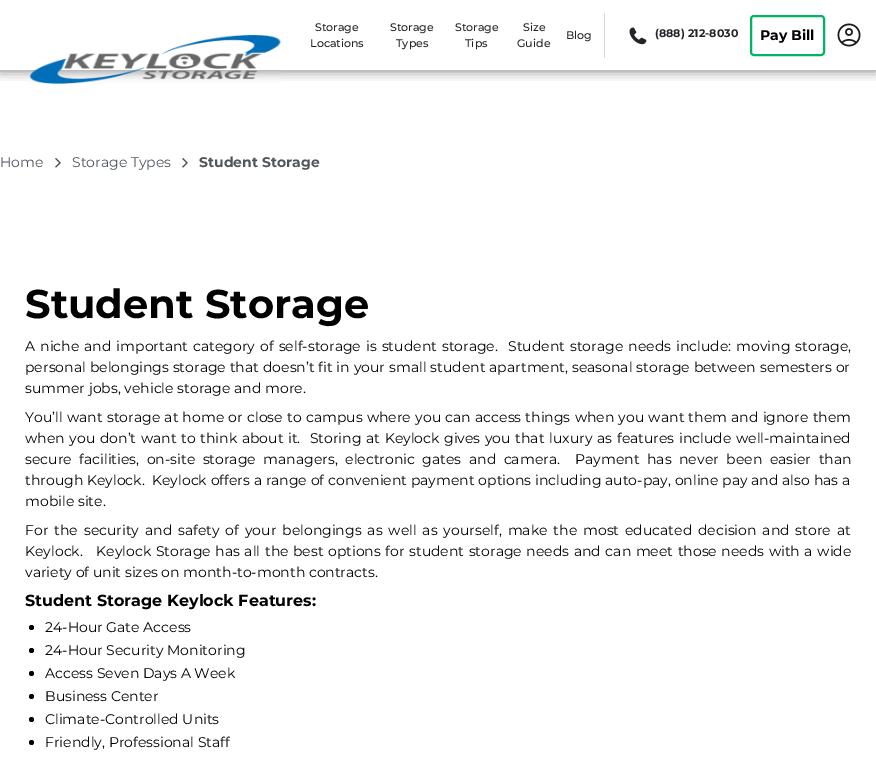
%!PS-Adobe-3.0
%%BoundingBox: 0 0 876 758
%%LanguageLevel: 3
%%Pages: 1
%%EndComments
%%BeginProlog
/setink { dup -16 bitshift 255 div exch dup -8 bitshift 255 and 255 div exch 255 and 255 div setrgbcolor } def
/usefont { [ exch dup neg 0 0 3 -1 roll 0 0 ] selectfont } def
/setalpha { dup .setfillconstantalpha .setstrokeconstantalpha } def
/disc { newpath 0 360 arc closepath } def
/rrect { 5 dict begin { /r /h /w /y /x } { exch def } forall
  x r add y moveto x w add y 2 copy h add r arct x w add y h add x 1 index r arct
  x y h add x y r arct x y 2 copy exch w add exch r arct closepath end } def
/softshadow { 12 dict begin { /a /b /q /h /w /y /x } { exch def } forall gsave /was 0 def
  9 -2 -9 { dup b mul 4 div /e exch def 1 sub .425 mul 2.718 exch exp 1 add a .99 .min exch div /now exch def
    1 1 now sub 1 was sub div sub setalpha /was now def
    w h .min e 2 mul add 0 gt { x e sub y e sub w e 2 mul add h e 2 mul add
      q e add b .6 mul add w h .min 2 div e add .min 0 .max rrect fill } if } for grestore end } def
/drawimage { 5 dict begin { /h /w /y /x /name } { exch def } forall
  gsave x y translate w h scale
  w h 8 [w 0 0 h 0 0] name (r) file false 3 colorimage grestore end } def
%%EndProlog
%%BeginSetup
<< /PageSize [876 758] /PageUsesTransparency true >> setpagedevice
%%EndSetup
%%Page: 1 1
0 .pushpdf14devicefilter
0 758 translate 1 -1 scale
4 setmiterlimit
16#FFFFFF setink
0 0 876 758 rectfill
gsave
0 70 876 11 rectclip
16#000000 setink
0 1 876 70 0 6 0.5 softshadow
grestore
(img1.raw) 29 34 253 50 drawimage
/Montserrat-Medium 11 usefont
16#212529 setink
[
    [(Storage) 315 31]
    [(Locations) 310 47]
    [(Storage) 390 31]
    [(Types) 396 47]
    [(Storage) 455 31]
    [(Tips) 465 47]
    [(Size) 523 31]
    [(Guide) 517 47]
    [(Blog) 566 39]
] { aload pop moveto show } forall
16#D8D8D8 setink
604 13 1 45 rectfill
(img2.raw) 629 27 18 18 drawimage
/Montserrat-Bold 11 usefont
16#212529 setink
655 37 moveto (\(888\) 212-8030) show
16#01B461 setink
2 setlinewidth
751 16 73 39 3 rrect stroke
/Montserrat-Bold 14 usefont
16#000000 setink
760 40 moveto (Pay Bill) show
(img3.raw) 837 23 24 24 drawimage
/Montserrat-Regular 14 usefont
16#4E555B setink
0 167 moveto (Home) show
(img4.raw) 55 158 6 10 drawimage
72 167 moveto (Storage Types) show
(img4.raw) 182 158 6 10 drawimage
/Montserrat-Bold 14 usefont
199 167 moveto (Student Storage) show
/Montserrat-Bold 40 usefont
16#000000 setink
25 318 moveto (Student Storage) show
/Montserrat-Regular 14 usefont
25 351 moveto 1.4 0 32 (A niche and important category of self-storage is student storage.  Student storage needs include: moving storage,) widthshow
25 372 moveto 0.25 0 32 (personal belongings storage that doesn’t fit in your small student apartment, seasonal storage between semesters or) widthshow
25 393 moveto (summer jobs, vehicle storage and more.) show
25 422 moveto 0.6 0 32 (You’ll want storage at home or close to campus where you can access things when you want them and ignore them) widthshow
25 443 moveto 1 0 32 (when you don’t want to think about it.  Storing at Keylock gives you that luxury as features include well-maintained) widthshow
25 464 moveto 3.9 0 32 (secure facilities, on-site storage managers, electronic gates and camera.  Payment has never been easier than) widthshow
25 485 moveto 0.1 0 32 (through Keylock.  Keylock offers a range of convenient payment options including auto-pay, online pay and also has a) widthshow
25 506 moveto (mobile site.) show
25 535 moveto 2.25 0 32 (For the security and safety of your belongings as well as yourself, make the most educated decision and store at) widthshow
25 556 moveto 0.9 0 32 (Keylock.   Keylock Storage has all the best options for student storage needs and can meet those needs with a wide) widthshow
25 577 moveto (variety of unit sizes on month-to-month contracts.) show
/Montserrat-Bold 16 usefont
25 606 moveto (Student Storage Keylock Features:) show
31.5 627.5 2.5 disc fill
/Montserrat-Regular 14 usefont
45 632 moveto (24-Hour Gate Access) show
31.5 650.5 2.5 disc fill
45 655 moveto (24-Hour Security Monitoring) show
31.5 673.5 2.5 disc fill
45 678 moveto (Access Seven Days A Week) show
31.5 696.5 2.5 disc fill
45 701 moveto (Business Center) show
31.5 719.5 2.5 disc fill
45 724 moveto (Climate-Controlled Units) show
31.5 742.5 2.5 disc fill
45 747 moveto (Friendly, Professional Staff) show
.poppdf14devicefilter showpage
%%EOF
